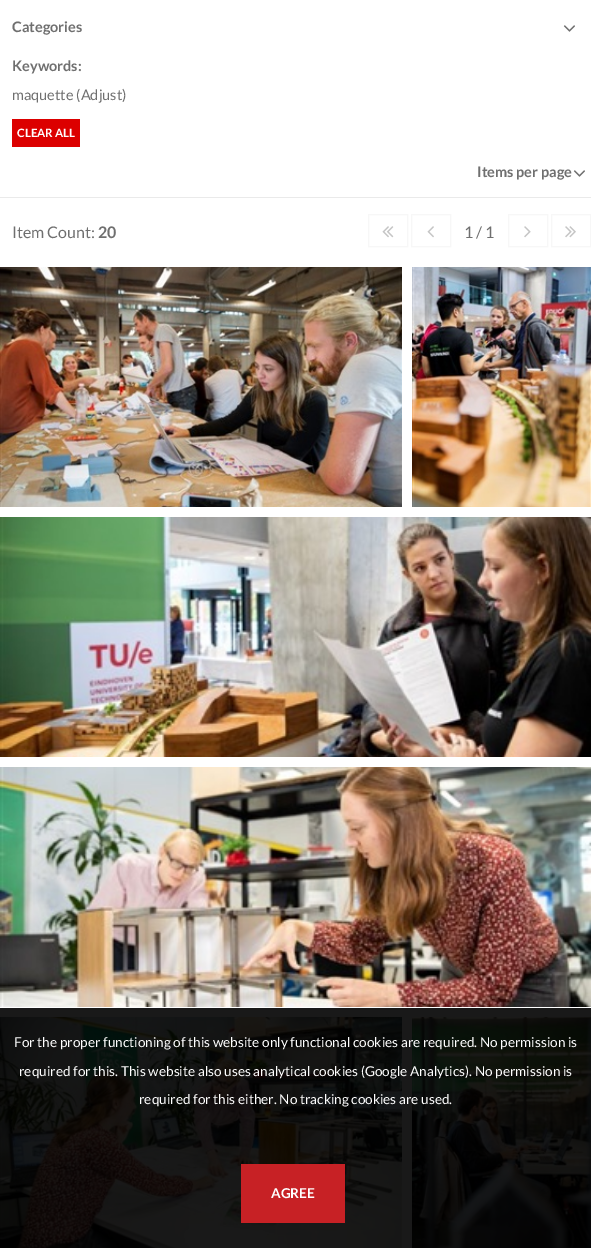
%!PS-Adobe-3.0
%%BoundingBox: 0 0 591 1248
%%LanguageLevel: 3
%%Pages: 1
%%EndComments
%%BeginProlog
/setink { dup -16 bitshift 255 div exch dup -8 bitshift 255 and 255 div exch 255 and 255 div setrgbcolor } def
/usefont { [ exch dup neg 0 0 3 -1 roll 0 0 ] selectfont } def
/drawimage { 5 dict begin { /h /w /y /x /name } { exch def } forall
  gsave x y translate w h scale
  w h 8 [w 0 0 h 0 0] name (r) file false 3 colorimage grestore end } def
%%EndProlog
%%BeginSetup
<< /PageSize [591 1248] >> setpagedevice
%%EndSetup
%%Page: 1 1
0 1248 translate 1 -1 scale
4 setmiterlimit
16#FFFFFF setink
0 0 591 1248 rectfill
16#191919 setink
0 1008 591 240 rectfill
16#EAEAEA setink
0 197 591 1 rectfill
/Lato-Bold 14.5 usefont
16#6F6F6F setink
12 32 moveto (Categories) show
(img1.raw) 563 25 12 7 drawimage
12 71 moveto (Keywords:) show
/Lato-Regular 14.5 usefont
12 100 moveto (maquette \(Adjust\)) show
16#DC0000 setink
12 119 68 28 rectfill
/Lato-Bold 11.5 usefont
16#FFFFFF setink
17 137 moveto (CLEAR ALL) show
/Lato-Bold 14.5 usefont
16#6F6F6F setink
477 177 moveto (Items per page) show
(img1.raw) 573 170 12 7 drawimage
/Lato-Regular 16 usefont
12 238 moveto (Item Count:) show
/Lato-Bold 16 usefont
98 238 moveto (20) show
16#F7F7F7 setink
368.5 214.5 39 32 rectstroke
(img2.raw) 382 226 12 12 drawimage
411.5 214.5 39 32 rectstroke
(img3.raw) 427 226 7 12 drawimage
/Lato-Regular 16 usefont
16#6F6F6F setink
464 238 moveto (1 / 1) show
16#F7F7F7 setink
508.5 214.5 39 32 rectstroke
(img4.raw) 524 226 7 12 drawimage
551.5 214.5 39 32 rectstroke
(img5.raw) 565 226 11 12 drawimage
(img6.raw) 0 267 402 240 drawimage
(img7.raw) 412 267 179 240 drawimage
(img8.raw) 0 517 591 240 drawimage
(img9.raw) 0 767 591 240 drawimage
(img10.raw) 0 1017 402 231 drawimage
(img11.raw) 412 1017 179 231 drawimage
/Lato-Regular 13.6 usefont
16#FFFFFF setink
[
    [(For the proper functioning of this website only functional cookies are required. No permission is) 14 1047]
    [(required for this. This website also uses analytical cookies \(Google Analytics\). No permission is) 19 1076]
    [(required for this either. No tracking cookies are used.) 139 1104]
] { aload pop moveto show } forall
16#C72125 setink
241 1164 104 59 rectfill
/Lato-Bold 13.6 usefont
16#FFFFFF setink
271 1198 moveto (AGREE) show
showpage
%%EOF
